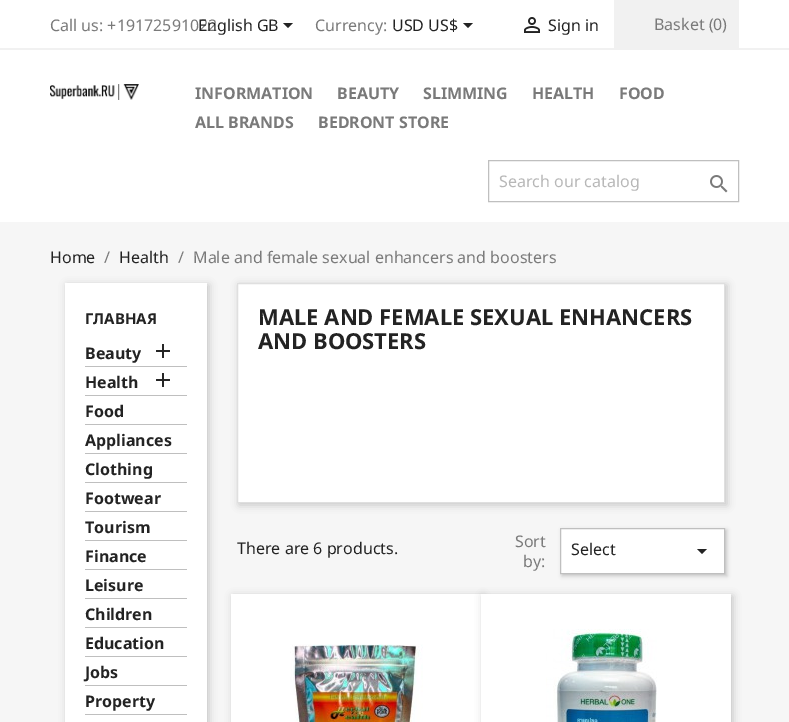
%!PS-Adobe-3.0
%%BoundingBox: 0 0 789 722
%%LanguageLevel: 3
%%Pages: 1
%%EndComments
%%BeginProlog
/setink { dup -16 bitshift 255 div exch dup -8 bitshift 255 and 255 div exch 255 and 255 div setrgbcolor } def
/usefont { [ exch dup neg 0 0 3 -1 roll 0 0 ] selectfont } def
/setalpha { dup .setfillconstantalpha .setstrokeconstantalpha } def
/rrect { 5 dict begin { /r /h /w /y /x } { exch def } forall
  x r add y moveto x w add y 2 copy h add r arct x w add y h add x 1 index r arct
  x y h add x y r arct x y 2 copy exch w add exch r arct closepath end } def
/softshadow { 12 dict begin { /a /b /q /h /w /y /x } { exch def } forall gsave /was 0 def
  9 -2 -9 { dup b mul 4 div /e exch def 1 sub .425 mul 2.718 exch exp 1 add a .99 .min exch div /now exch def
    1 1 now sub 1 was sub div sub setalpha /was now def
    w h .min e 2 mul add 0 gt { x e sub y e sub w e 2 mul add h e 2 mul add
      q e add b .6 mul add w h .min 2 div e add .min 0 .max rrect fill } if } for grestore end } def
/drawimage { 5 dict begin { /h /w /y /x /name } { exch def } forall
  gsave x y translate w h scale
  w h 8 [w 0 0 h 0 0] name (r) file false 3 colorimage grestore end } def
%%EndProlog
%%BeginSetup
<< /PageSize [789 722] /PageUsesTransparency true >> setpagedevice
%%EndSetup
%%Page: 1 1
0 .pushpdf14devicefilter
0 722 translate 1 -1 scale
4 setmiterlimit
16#FFFFFF setink
0 0 789 722 rectfill
16#F1F1F1 setink
0 48 789 2 rectfill
/NotoSans-Regular 16 usefont
16#7A7A7A setink
50 31 moveto (Call us: +19172591022) show
16#232323 setink
198 31 moveto (English GB) show
283 23 moveto 293 23 lineto 288 28 lineto closepath fill
16#7A7A7A setink
315 31 moveto (Currency:) show
16#232323 setink
392 31 moveto (USD US$) show
463 23 moveto 473 23 lineto 468 28 lineto closepath fill
(img1.raw) 524 17 16 16 drawimage
548 31 moveto (Sign in) show
16#F1F1F1 setink
614 0 125 48 rectfill
16#7A7A7A setink
654 30 moveto (Basket \(0\)) show
(img2.raw) 50 84 89 16 drawimage
/NotoSans-Bold 16 usefont
[
    [(INFORMATION) 195 99]
    [(BEAUTY) 337 99]
    [(SLIMMING) 423 99]
    [(HEALTH) 532 99]
    [(FOOD) 619 99]
    [(ALL BRANDS) 195 128]
    [(BEDRONT STORE) 318 128]
] { aload pop moveto show } forall
16#BFBFBF setink
488.5 160.5 250 41 rectstroke
/NotoSans-Regular 16 usefont
16#B7B7B7 setink
499 187 moveto (Search our catalog) show
(img3.raw) 710 175 18 18 drawimage
16#F6F6F6 setink
0 222 789 500 rectfill
16#232323 setink
50 263 moveto (Home) show
16#7A7A7A setink
104 263 moveto (/) show
16#232323 setink
119 263 moveto (Health) show
16#7A7A7A setink
178 263 moveto (/) show
193 263 moveto (Male and female sexual enhancers and boosters) show
16#000000 setink
67 285 142 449 0 4 0.2 softshadow
16#FFFFFF setink
65 283 142 439 rectfill
/NotoSans-Bold 15 usefont
16#232323 setink
85 324 moveto (ГЛАВНАЯ) show
16#BFBFBF setink
85 366 102 1 rectfill
/NotoSans-Bold 16 usefont
16#232323 setink
85 359 moveto (Beauty) show
(img4.raw) 156 344 14 14 drawimage
16#BFBFBF setink
85 395 102 1 rectfill
16#232323 setink
85 388 moveto (Health) show
(img4.raw) 156 373 14 14 drawimage
16#BFBFBF setink
85 424 102 1 rectfill
16#232323 setink
85 417 moveto (Food) show
16#BFBFBF setink
85 453 102 1 rectfill
16#232323 setink
85 446 moveto (Appliances) show
16#BFBFBF setink
85 482 102 1 rectfill
16#232323 setink
85 475 moveto (Clothing) show
16#BFBFBF setink
85 511 102 1 rectfill
16#232323 setink
85 504 moveto (Footwear) show
16#BFBFBF setink
85 540 102 1 rectfill
16#232323 setink
85 533 moveto (Tourism) show
16#BFBFBF setink
85 569 102 1 rectfill
16#232323 setink
85 562 moveto (Finance) show
16#BFBFBF setink
85 598 102 1 rectfill
16#232323 setink
85 591 moveto (Leisure) show
16#BFBFBF setink
85 627 102 1 rectfill
16#232323 setink
85 620 moveto (Children) show
16#BFBFBF setink
85 656 102 1 rectfill
16#232323 setink
85 649 moveto (Education) show
16#BFBFBF setink
85 685 102 1 rectfill
16#232323 setink
85 678 moveto (Jobs) show
16#BFBFBF setink
85 714 102 1 rectfill
16#232323 setink
85 707 moveto (Property) show
16#000000 setink
239 285 488 220 0 4 0.2 softshadow
16#FFFFFF setink
237.5 283.5 moveto 724.5 283.5 lineto 724.5 502.5 lineto 237.5 502.5 lineto closepath gsave fill grestore
16#DFDFDF setink
stroke
/NotoSans-Bold 22 usefont
16#232323 setink
258 325 moveto (MALE AND FEMALE SEXUAL ENHANCERS) show
258 349 moveto (AND BOOSTERS) show
/NotoSans-Regular 16 usefont
237 554 moveto (There are 6 products.) show
16#7A7A7A setink
515 547 moveto (Sort) show
523 567 moveto (by:) show
16#000000 setink
562 530 165 46 0 2 0.2 softshadow
16#FFFFFF setink
560.5 528.5 moveto 724.5 528.5 lineto 724.5 573.5 lineto 560.5 573.5 lineto closepath gsave fill grestore
16#BFBFBF setink
stroke
16#232323 setink
571 555 moveto (Select) show
697 549 moveto 707 549 lineto 702 554 lineto closepath fill
16#000000 setink
233 596 250 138 0 4 0.2 softshadow
16#FFFFFF setink
231 594 250 128 rectfill
(img5.raw) 290 644 133 78 drawimage
16#000000 setink
483 596 250 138 0 4 0.2 softshadow
16#FFFFFF setink
481 594 250 128 rectfill
(img6.raw) 546 629 111 93 drawimage
.poppdf14devicefilter showpage
%%EOF
